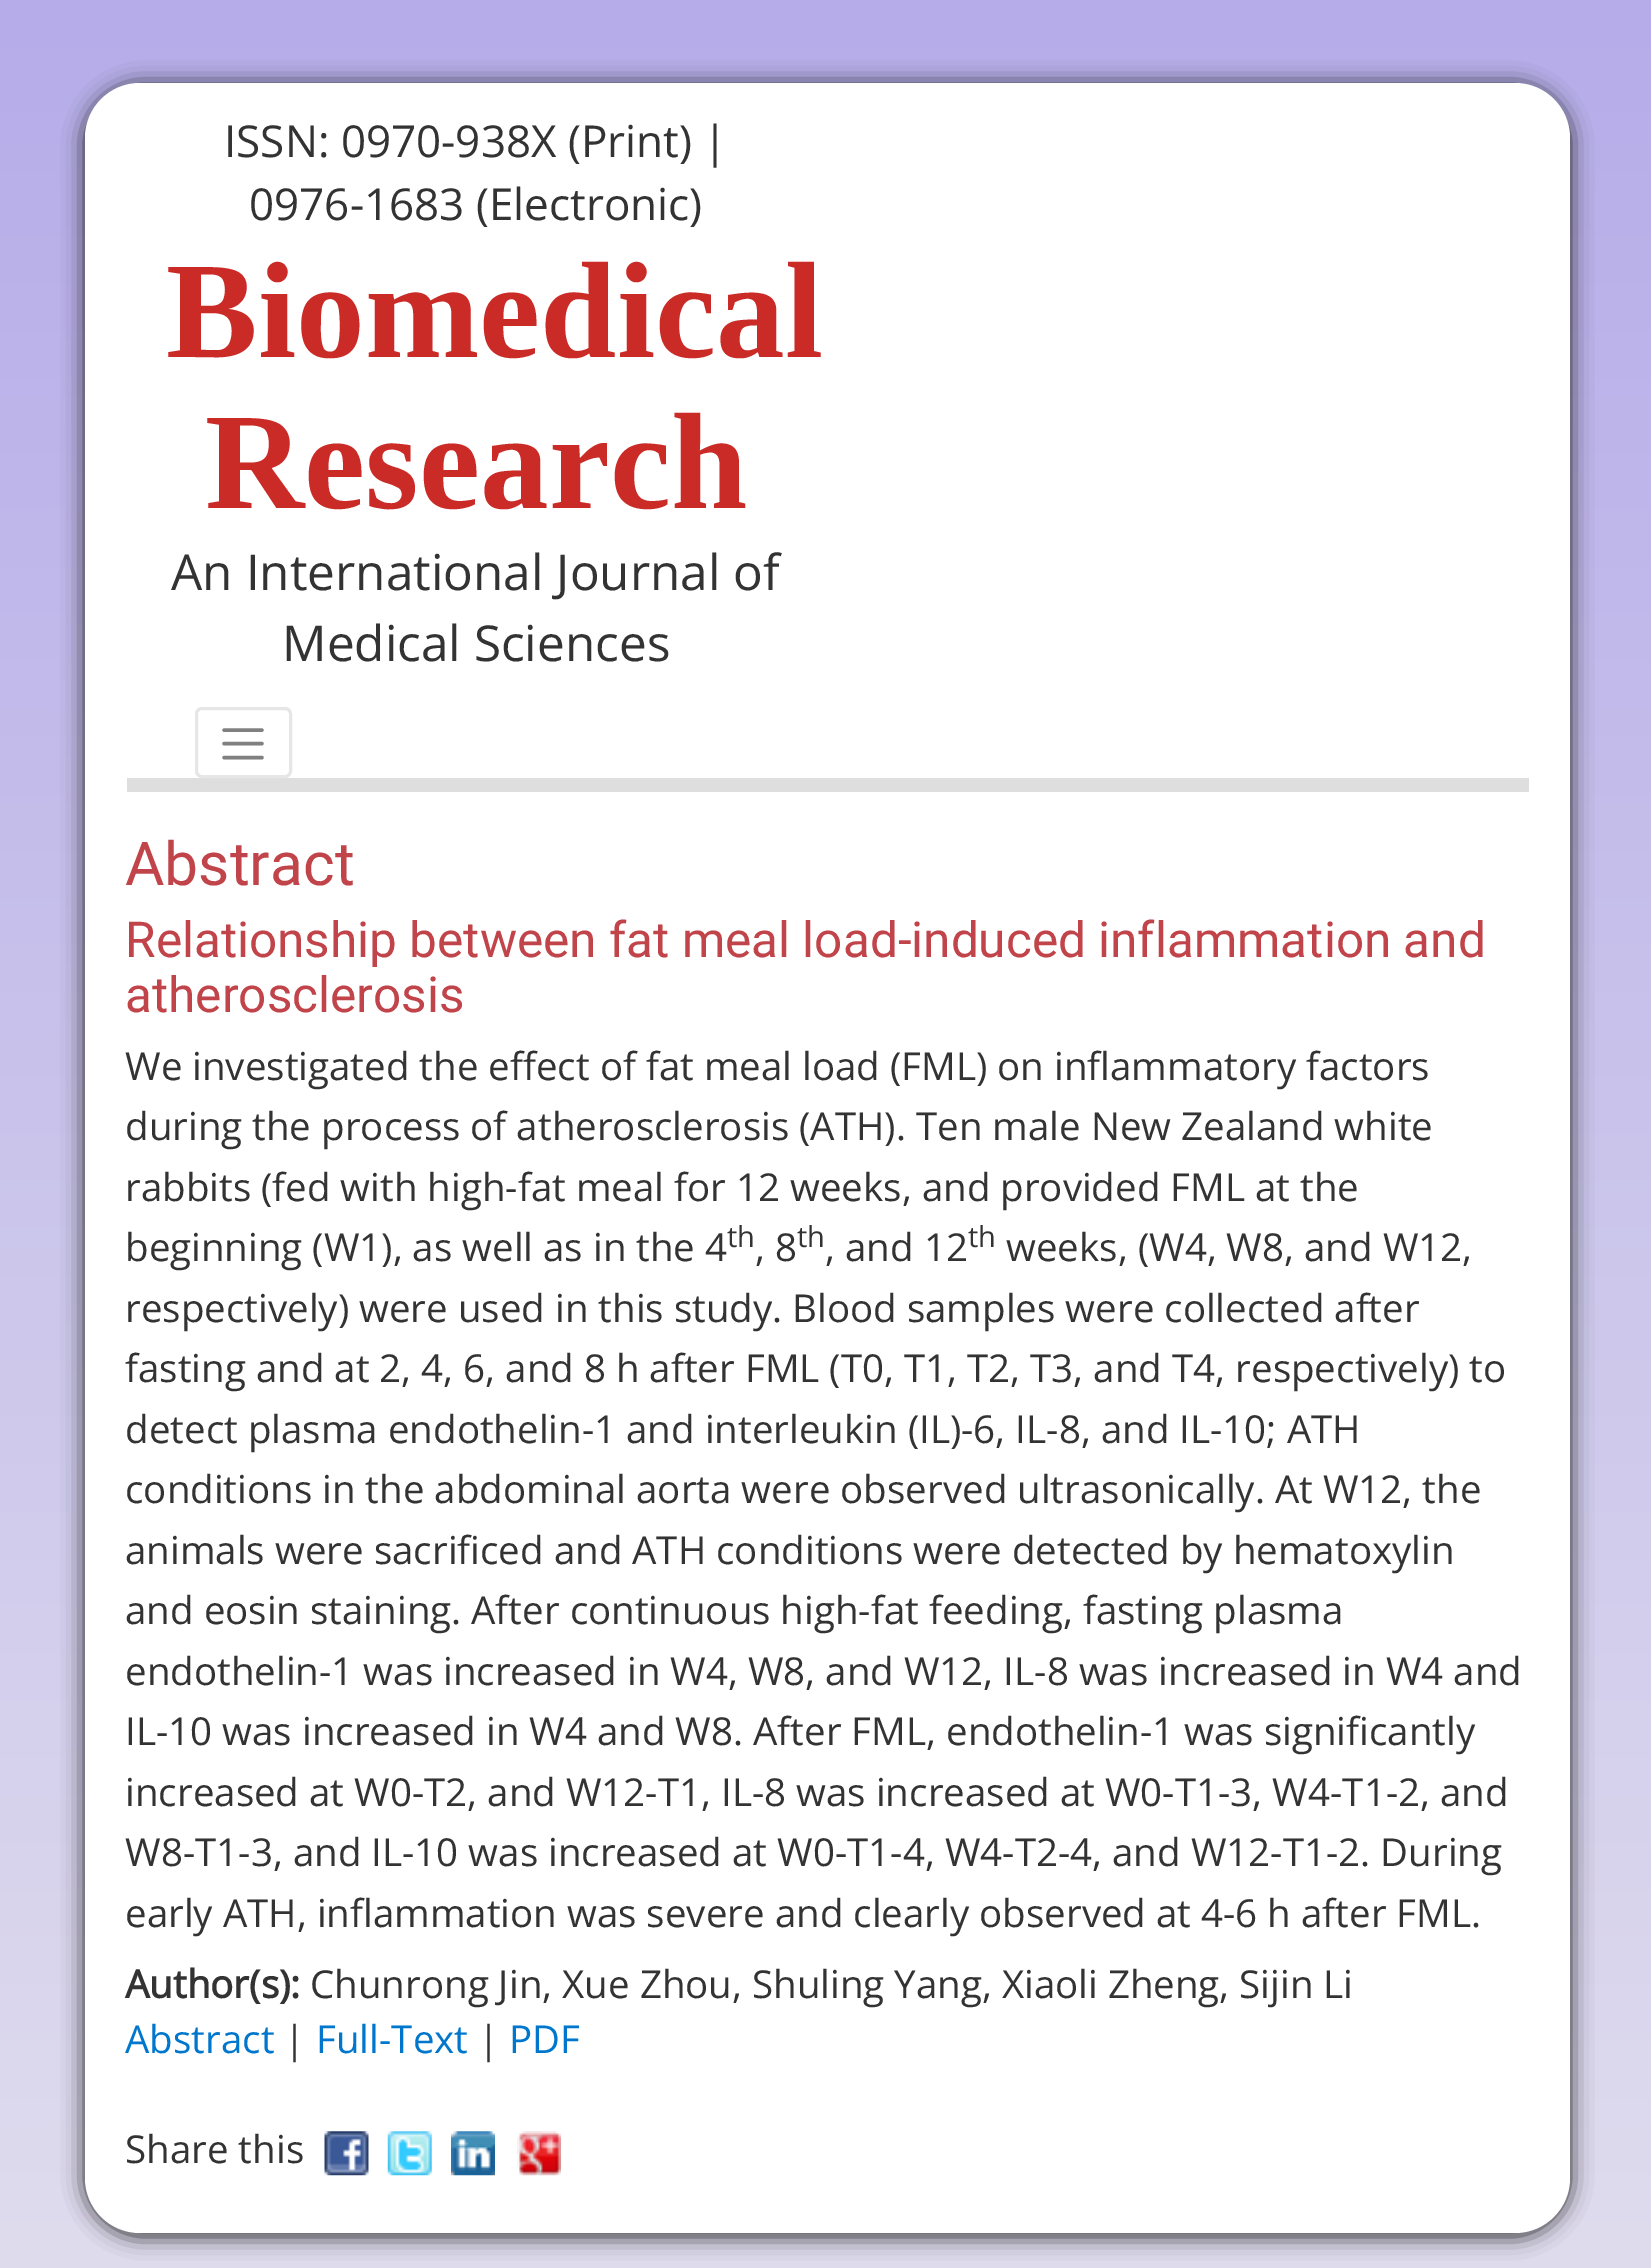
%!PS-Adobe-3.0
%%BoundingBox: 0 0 1651 2268
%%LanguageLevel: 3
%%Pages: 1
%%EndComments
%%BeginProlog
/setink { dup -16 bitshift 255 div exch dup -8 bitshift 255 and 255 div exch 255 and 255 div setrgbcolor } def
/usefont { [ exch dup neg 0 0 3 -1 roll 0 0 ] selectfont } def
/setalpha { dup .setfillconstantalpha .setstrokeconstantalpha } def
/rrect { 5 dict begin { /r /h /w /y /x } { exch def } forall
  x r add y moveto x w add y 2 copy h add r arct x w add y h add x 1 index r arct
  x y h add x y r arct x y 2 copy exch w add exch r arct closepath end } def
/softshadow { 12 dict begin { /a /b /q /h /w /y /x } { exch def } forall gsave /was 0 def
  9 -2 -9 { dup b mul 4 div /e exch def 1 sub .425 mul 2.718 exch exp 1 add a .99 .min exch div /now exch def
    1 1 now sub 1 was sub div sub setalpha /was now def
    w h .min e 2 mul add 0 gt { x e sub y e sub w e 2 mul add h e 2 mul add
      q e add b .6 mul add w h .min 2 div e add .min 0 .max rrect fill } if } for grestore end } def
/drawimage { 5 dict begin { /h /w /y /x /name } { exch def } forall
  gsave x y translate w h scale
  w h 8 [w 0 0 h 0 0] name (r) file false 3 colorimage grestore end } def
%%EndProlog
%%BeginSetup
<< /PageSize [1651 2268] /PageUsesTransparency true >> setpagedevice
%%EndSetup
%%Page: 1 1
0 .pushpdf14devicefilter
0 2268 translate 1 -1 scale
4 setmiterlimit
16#FFFFFF setink
0 0 1651 2268 rectfill
gsave 0 0 moveto 1651 0 lineto 1651 2268 lineto 0 2268 lineto closepath clip newpath
<< /ShadingType 2 /ColorSpace /DeviceRGB /Coords [826 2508 826 0] /Extend [true true] /Function << /FunctionType 2 /Domain [0 1] /C0 [0.89 0.882 0.933] /C1 [0.714 0.675 0.914] /N 1 >> >> shfill grestore
16#202020 setink
85 85 1485 2151 55 11 1 softshadow
16#FFFFFF setink
85 83 1485 2150 55 rrect fill
16#DEDEDE setink
127 778 1402 14 rectfill
/OpenSans-Regular 44 usefont
16#333333 setink
224 157 moveto (ISSN: 0970-938X \(Print\) |) show
249 220 moveto (0976-1683 \(Electronic\)) show
/LiberationSerif-Bold 137.5 usefont
16#CA2B27 setink
166 357 moveto (Biomedical) show
205 508 moveto (Research) show
/OpenSans-Regular 49.5 usefont
16#333333 setink
171 590 moveto (An International Journal of) show
282 661 moveto (Medical Sciences) show
16#E6E6E6 setink
3 setlinewidth
196.5 708.5 94 68 5.5 rrect stroke
16#808080 setink
3.4 setlinewidth
1 setlinecap
224 730 moveto 262 730 lineto 224 743.5 moveto 262 743.5 lineto 224 757.5 moveto 262 757.5 lineto stroke
/Roboto-Regular 60.5 usefont
16#C0444A setink
125 885 moveto (Abstract) show
/Roboto-Regular 49.5 usefont
125 957 moveto (Relationship between fat meal load-induced inflammation and) show
125 1012 moveto (atherosclerosis) show
/OpenSans-Regular 38.5 usefont
16#333333 setink
[
    [(We investigated the effect of fat meal load \(FML\) on inflammatory factors) 125 1080]
    [(during the process of atherosclerosis \(ATH\). Ten male New Zealand white) 125 1140]
    [(rabbits \(fed with high-fat meal for 12 weeks, and provided FML at the) 125 1201]
    [(beginning \(W1\), as well as in the 4) 125 1261]
] { aload pop moveto show } forall
/OpenSans-Regular 29 usefont
727 1247 moveto (th) show
/OpenSans-Regular 38.5 usefont
755 1261 moveto (, 8) show
/OpenSans-Regular 29 usefont
797 1247 moveto (th) show
/OpenSans-Regular 38.5 usefont
825 1261 moveto (, and 12) show
/OpenSans-Regular 29 usefont
968 1247 moveto (th) show
/OpenSans-Regular 38.5 usefont
[
    [(weeks, \(W4, W8, and W12,) 1006 1261]
    [(respectively\) were used in this study. Blood samples were collected after) 125 1322]
    [(fasting and at 2, 4, 6, and 8 h after FML \(T0, T1, T2, T3, and T4, respectively\) to) 125 1382]
    [(detect plasma endothelin-1 and interleukin \(IL\)-6, IL-8, and IL-10; ATH) 125 1443]
    [(conditions in the abdominal aorta were observed ultrasonically. At W12, the) 125 1503]
    [(animals were sacrificed and ATH conditions were detected by hematoxylin) 125 1564]
    [(and eosin staining. After continuous high-fat feeding, fasting plasma) 125 1624]
    [(endothelin-1 was increased in W4, W8, and W12, IL-8 was increased in W4 and) 125 1685]
    [(IL-10 was increased in W4 and W8. After FML, endothelin-1 was significantly) 125 1745]
    [(increased at W0-T2, and W12-T1, IL-8 was increased at W0-T1-3, W4-T1-2, and) 125 1806]
    [(W8-T1-3, and IL-10 was increased at W0-T1-4, W4-T2-4, and W12-T1-2. During) 125 1866]
    [(early ATH, inflammation was severe and clearly observed at 4-6 h after FML.) 125 1927]
] { aload pop moveto show } forall
/OpenSans-Bold 38.5 usefont
125 1998 moveto (Author\(s\):) show
/OpenSans-Regular 38.5 usefont
310 1998 moveto (Chunrong Jin, Xue Zhou, Shuling Yang, Xiaoli Zheng, Sijin Li) show
16#0077CC setink
125 2053 moveto (Abstract) show
16#333333 setink
284 2053 moveto (|) show
16#0077CC setink
316 2053 moveto (Full-Text) show
16#333333 setink
478 2053 moveto (|) show
16#0077CC setink
509 2053 moveto (PDF) show
16#333333 setink
125 2163 moveto (Share this) show
(img1.raw) 324 2131 45 45 drawimage
(img2.raw) 387 2131 45 45 drawimage
(img3.raw) 451 2131 44 45 drawimage
(img4.raw) 517 2131 44 45 drawimage
.poppdf14devicefilter showpage
%%EOF
